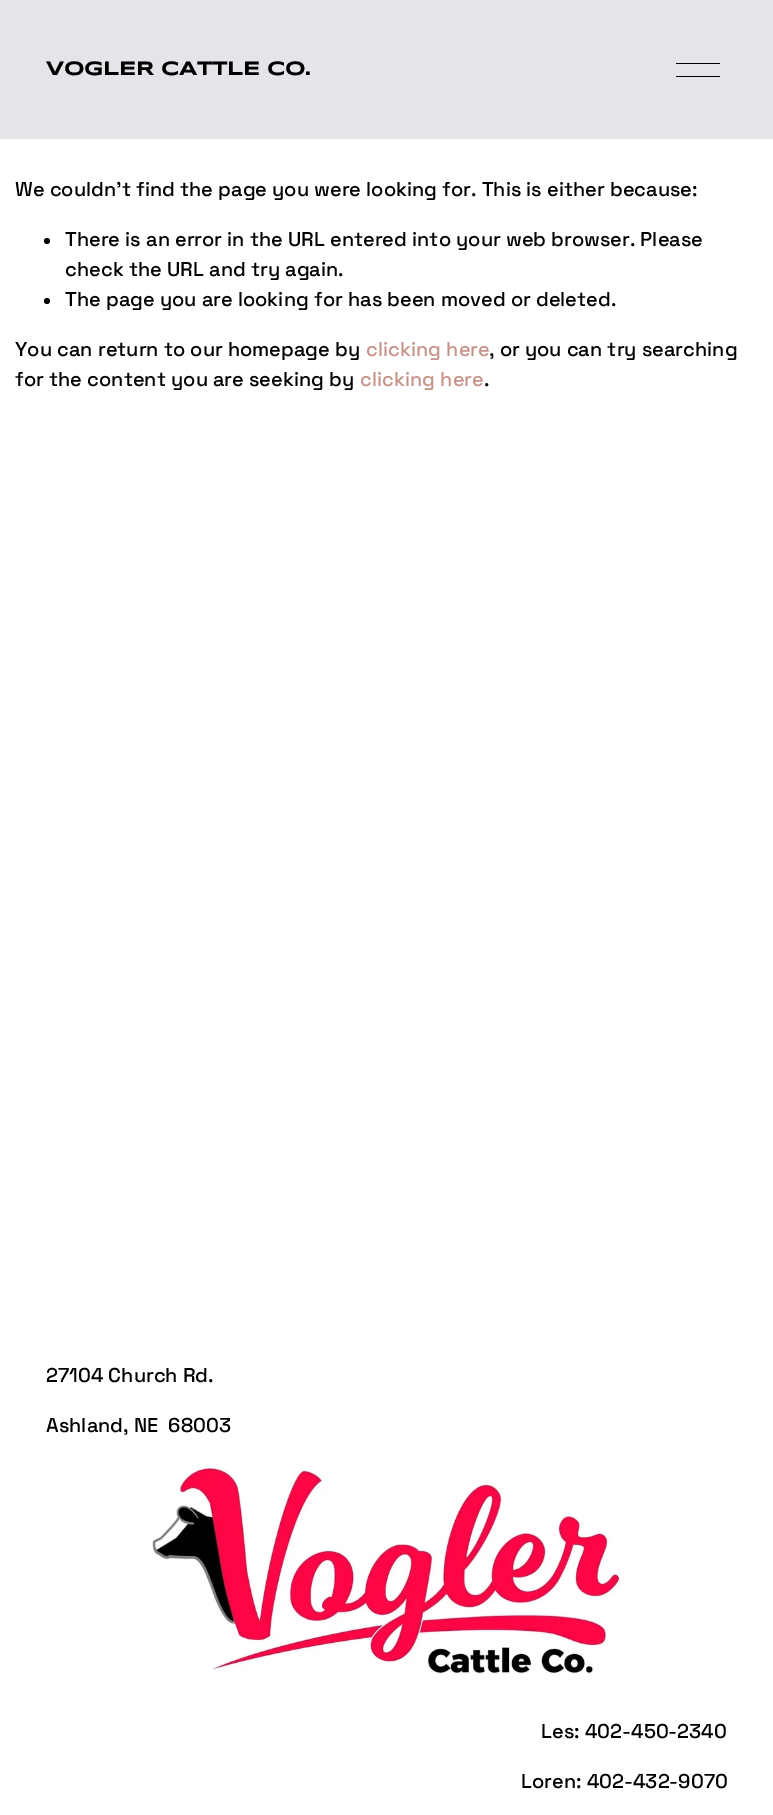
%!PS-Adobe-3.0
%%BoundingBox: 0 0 773 1815
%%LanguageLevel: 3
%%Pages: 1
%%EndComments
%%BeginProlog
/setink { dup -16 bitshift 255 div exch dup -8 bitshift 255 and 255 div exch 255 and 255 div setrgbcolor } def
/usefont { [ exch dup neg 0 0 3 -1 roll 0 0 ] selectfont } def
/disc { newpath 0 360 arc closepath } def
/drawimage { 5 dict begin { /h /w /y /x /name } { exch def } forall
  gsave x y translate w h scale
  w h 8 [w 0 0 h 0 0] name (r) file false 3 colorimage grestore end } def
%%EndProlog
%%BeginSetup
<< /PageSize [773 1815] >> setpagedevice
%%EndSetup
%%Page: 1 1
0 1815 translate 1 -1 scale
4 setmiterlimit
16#FFFFFF setink
0 0 773 1815 rectfill
16#E6E4E8 setink
0 0 773 139 rectfill
/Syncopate-Bold 20 usefont
16#000000 setink
46 75 moveto -0.4 0 (VOGLER CATTLE CO.) ashow
676 63 44 1 rectfill
676 76 44 1 rectfill
/SpaceGrotesk-Medium 20 usefont
15 196 moveto (We couldn't find the page you were looking for. This is either because:) show
47 241 3 disc fill
65 246 moveto (There is an error in the URL entered into your web browser. Please) show
65 276 moveto (check the URL and try again.) show
47 301 3 disc fill
65 306 moveto (The page you are looking for has been moved or deleted.) show
15 356 moveto (You can return to our homepage by) show
16#C79288 setink
366 356 moveto (clicking here) show
16#000000 setink
489 356 moveto (, or you can try searching) show
15 386 moveto (for the content you are seeking by) show
16#C79288 setink
360 386 moveto (clicking here) show
16#000000 setink
[
    [(.) 484 386]
    [(27104 Church Rd.) 46 1382]
    [(Ashland, NE  68003) 46 1432]
] { aload pop moveto show } forall
(img1.raw) 152 1464 470 210 drawimage
541 1738 moveto (Les: 402-450-2340) show
521 1788 moveto (Loren: 402-432-9070) show
showpage
%%EOF
